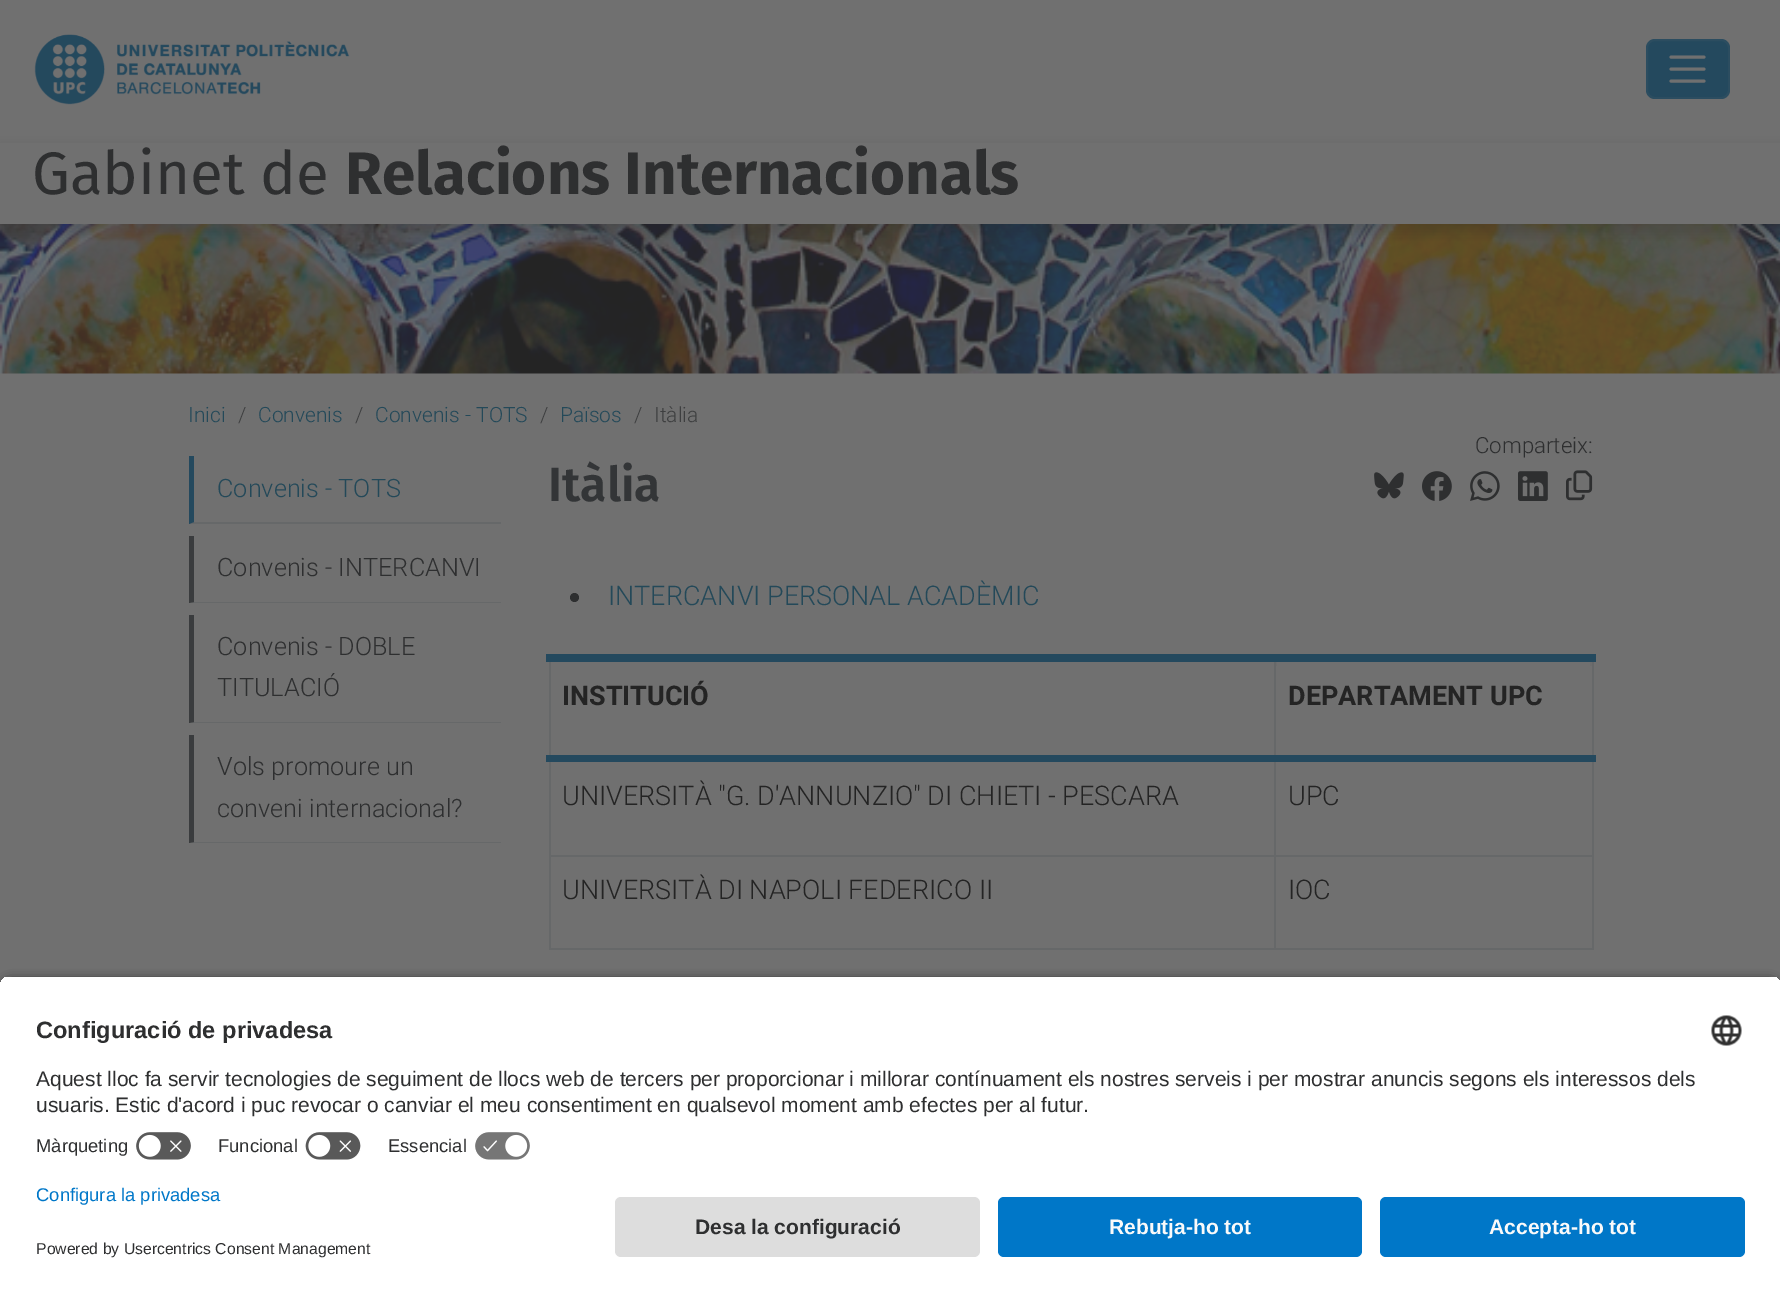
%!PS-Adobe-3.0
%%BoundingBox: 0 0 1780 1292
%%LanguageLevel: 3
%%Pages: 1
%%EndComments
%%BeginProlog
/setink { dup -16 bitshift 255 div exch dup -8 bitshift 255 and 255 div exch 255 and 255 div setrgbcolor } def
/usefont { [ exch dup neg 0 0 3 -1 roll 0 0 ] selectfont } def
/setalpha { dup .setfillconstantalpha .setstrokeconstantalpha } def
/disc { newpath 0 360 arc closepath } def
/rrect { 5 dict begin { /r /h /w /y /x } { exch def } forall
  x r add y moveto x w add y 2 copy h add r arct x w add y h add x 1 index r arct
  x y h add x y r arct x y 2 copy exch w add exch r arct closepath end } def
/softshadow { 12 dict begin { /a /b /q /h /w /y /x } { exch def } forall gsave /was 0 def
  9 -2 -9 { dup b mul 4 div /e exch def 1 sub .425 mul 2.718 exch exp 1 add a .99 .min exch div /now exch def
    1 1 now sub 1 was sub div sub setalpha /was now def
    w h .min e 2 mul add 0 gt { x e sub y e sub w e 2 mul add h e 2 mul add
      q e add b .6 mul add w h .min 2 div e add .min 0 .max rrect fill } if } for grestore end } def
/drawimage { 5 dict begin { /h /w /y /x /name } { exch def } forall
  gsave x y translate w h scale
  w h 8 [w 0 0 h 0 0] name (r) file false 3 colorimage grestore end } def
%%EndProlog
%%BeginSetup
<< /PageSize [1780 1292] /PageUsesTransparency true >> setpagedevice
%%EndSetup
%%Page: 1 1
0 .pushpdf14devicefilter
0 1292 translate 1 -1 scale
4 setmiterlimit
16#707070 setink
0 0 1780 1292 rectfill
(img1.raw) 34 34 316 71 drawimage
16#24495E setink
1646 39 84 60 9 rrect fill
0.1 setalpha
16#707070 setink
2 setlinewidth
1647 40 82 58 8 rrect stroke
1 setalpha
3 setlinewidth
1 setlinecap
1671 57 moveto 1704 57 lineto 1671 69 moveto 1704 69 lineto 1671 81 moveto 1704 81 lineto stroke
(img2.raw) 0 224 1780 150 drawimage
16#242424 setink
0 149 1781 85 0 6 0.2 softshadow
16#707070 setink
0 143 1780 81 rectfill
/FiraSans-Regular 60 usefont
16#2E2F30 setink
32 194 moveto (Gabinet de) show
/FiraSans-Bold 60 usefont
345 194 moveto (Relacions Internacionals) show
/Roboto-Light 21 usefont
16#244959 setink
188 422 moveto (Inici) show
16#3E3F40 setink
238 422 moveto (/) show
16#244959 setink
258 422 moveto (Convenis) show
16#3E3F40 setink
355 422 moveto (/) show
16#244959 setink
375 422 moveto (Convenis - TOTS) show
16#3E3F40 setink
540 422 moveto (/) show
16#244959 setink
560 422 moveto (Països) show
16#3E3F40 setink
634 422 moveto (/) show
654 422 moveto (Itàlia) show
16#666869 setink
501 524 moveto 189 524 lineto 194 522 lineto 501 522 lineto closepath fill
16#24495E setink
189 524 moveto 189 456 lineto 194 456 lineto 194 522 lineto closepath fill
/Roboto-Light 25.25 usefont
16#244959 setink
217 497 moveto (Convenis - TOTS) show
16#666869 setink
501 603 moveto 189 603 lineto 194 602 lineto 501 602 lineto closepath fill
16#3A3C3E setink
189 603 moveto 189 536 lineto 194 536 lineto 194 602 lineto closepath fill
16#2E2F30 setink
217 576 moveto (Convenis - INTERCANVI) show
16#666869 setink
501 723 moveto 189 723 lineto 194 722 lineto 501 722 lineto closepath fill
16#3A3C3E setink
189 723 moveto 189 615 lineto 194 615 lineto 194 722 lineto closepath fill
16#2E2F30 setink
217 655 moveto (Convenis - DOBLE) show
217 696 moveto (TITULACIÓ) show
16#666869 setink
501 843 moveto 189 843 lineto 194 842 lineto 501 842 lineto closepath fill
16#3A3C3E setink
189 843 moveto 189 735 lineto 194 735 lineto 194 842 lineto closepath fill
16#2E2F30 setink
217 775 moveto (Vols promoure un) show
217 817 moveto (conveni internacional?) show
/Roboto-Light 22.25 usefont
1475 453 moveto (Comparteix:) show
(img3.raw) 1374 472 30 27 drawimage
(img4.raw) 1422 471 30 30 drawimage
(img5.raw) 1470 471 30 30 drawimage
(img6.raw) 1518 471 30 30 drawimage
(img7.raw) 1566 470 27 31 drawimage
/FiraSans-SemiBold 48 usefont
16#333537 setink
548 501 moveto (Itàlia) show
16#2E2F30 setink
574.5 597.5 4.5 disc fill
/Roboto-Light 27 usefont
16#244959 setink
608 605 moveto (INTERCANVI PERSONAL ACADÈMIC) show
[
    [1276 662 316 4 16#6D6D6D]
    [549 855 1044 2 16#666869]
    [549 948 1044 2 16#666869]
    [549 657 2 293 16#666869]
    [1592 657 2 293 16#666869]
    [1274 657 2 293 16#666869]
    [546 755 1050 7 16#24495E]
    [546 654 1050 8 16#24495E]
] { aload pop setink rectfill } forall
/Roboto-Bold 27 usefont
16#242424 setink
562 705 moveto (INSTITUCIÓ) show
16#707070 setink
1277 662 313 4 rectfill
16#242424 setink
1288 705 moveto (DEPARTAMENT UPC) show
/Roboto-Light 27 usefont
[
    [(UNIVERSITÀ "G. D'ANNUNZIO" DI CHIETI - PESCARA) 562 805]
    [(UPC) 1288 805]
    [(UNIVERSITÀ DI NAPOLI FEDERICO II) 562 899]
    [(IOC) 1288 899]
] { aload pop moveto show } forall
16#000000 setink
0 980 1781 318 12 5 0.8 softshadow
gsave
12 975 moveto 1769 975 lineto 1775.5 975 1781 980.5 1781 987 curveto 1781 1185 lineto 0 1185 lineto 0 987 lineto 0 980.5 5.5 975 12 975 curveto closepath clip newpath
16#FFFFFF setink
0 977 1780 208 rectfill
0 977 1780 148 rectfill
grestore
/LiberationSans-Bold 23.6 usefont
16#2E2F30 setink
36 1038 moveto (Configuració de privadesa) show
(img8.raw) 1711 1015 31 31 drawimage
/LiberationSans-Regular 21 usefont
36 1086 moveto (Aquest lloc fa servir tecnologies de seguiment de llocs web de tercers per proporcionar i millorar contínuament els nostres serveis i per mostrar anuncis segons els interessos dels) show
36 1112 moveto (usuaris. Estic d'acord i puc revocar o canviar el meu consentiment en qualsevol moment amb efectes per al futur.) show
/LiberationSans-Regular 18.4 usefont
36 1152 moveto (Màrqueting) show
(img9.raw) 136 1132 55 28 drawimage
218 1152 moveto (Funcional) show
(img10.raw) 305 1132 56 28 drawimage
388 1152 moveto (Essencial) show
(img11.raw) 475 1132 55 28 drawimage
16#FFFFFF setink
0 1185 1780 107 rectfill
16#0077C8 setink
36 1201 moveto (Configura la privadesa) show
/LiberationSans-Regular 15.75 usefont
16#2E2F30 setink
36 1254 moveto (Powered by Usercentrics Consent Management) show
16#DDDDDD setink
615 1197 365 60 6 rrect fill
/LiberationSans-Bold 21 usefont
16#2E2F30 setink
695 1234 moveto (Desa la configuració) show
16#0077C8 setink
998 1197 364 60 6 rrect fill
16#FAFAFA setink
1109 1234 moveto (Rebutja-ho tot) show
16#0077C8 setink
1380 1197 365 60 6 rrect fill
16#FAFAFA setink
1489 1234 moveto (Accepta-ho tot) show
.poppdf14devicefilter showpage
%%EOF
